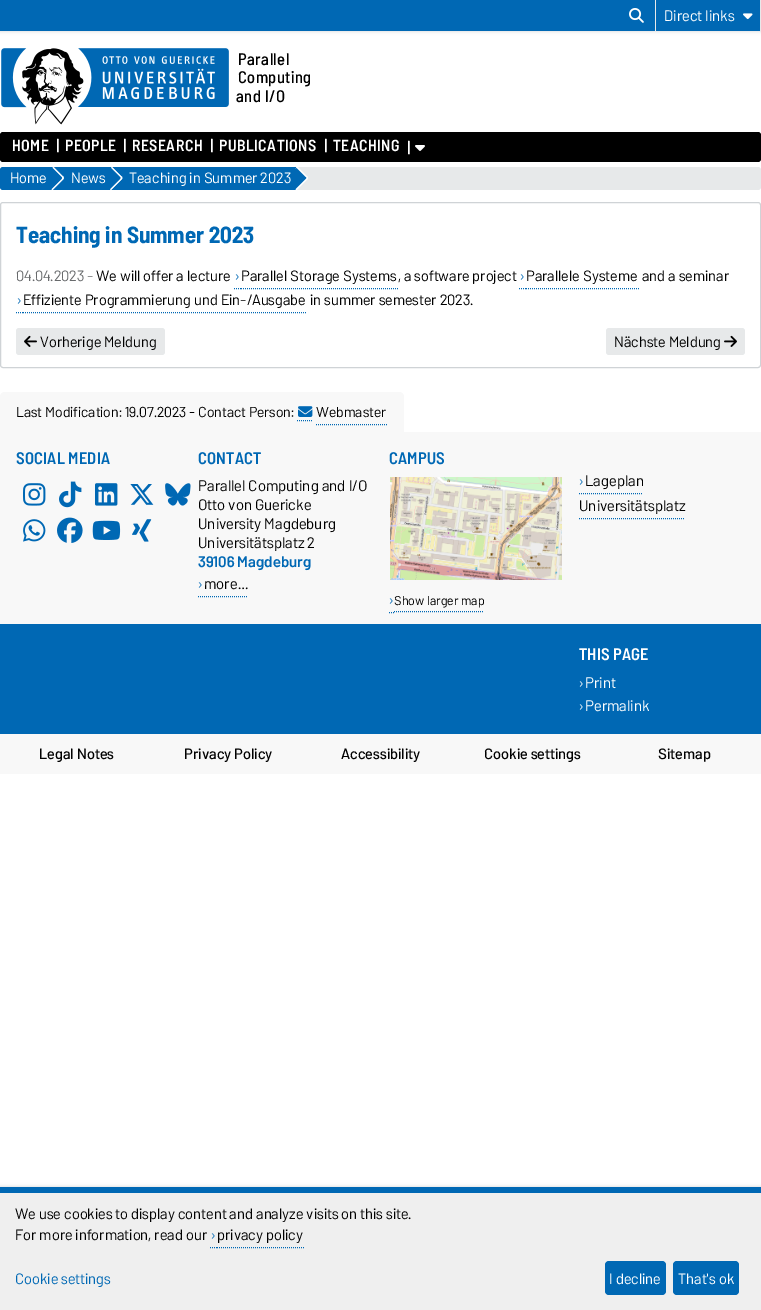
%!PS-Adobe-3.0
%%BoundingBox: 0 0 761 1310
%%LanguageLevel: 3
%%Pages: 1
%%EndComments
%%BeginProlog
/setink { dup -16 bitshift 255 div exch dup -8 bitshift 255 and 255 div exch 255 and 255 div setrgbcolor } def
/usefont { [ exch dup neg 0 0 3 -1 roll 0 0 ] selectfont } def
/setalpha { dup .setfillconstantalpha .setstrokeconstantalpha } def
/rrect { 5 dict begin { /r /h /w /y /x } { exch def } forall
  x r add y moveto x w add y 2 copy h add r arct x w add y h add x 1 index r arct
  x y h add x y r arct x y 2 copy exch w add exch r arct closepath end } def
/softshadow { 12 dict begin { /a /b /q /h /w /y /x } { exch def } forall gsave /was 0 def
  9 -2 -9 { dup b mul 4 div /e exch def 1 sub .425 mul 2.718 exch exp 1 add a .99 .min exch div /now exch def
    1 1 now sub 1 was sub div sub setalpha /was now def
    w h .min e 2 mul add 0 gt { x e sub y e sub w e 2 mul add h e 2 mul add
      q e add b .6 mul add w h .min 2 div e add .min 0 .max rrect fill } if } for grestore end } def
/drawimage { 5 dict begin { /h /w /y /x /name } { exch def } forall
  gsave x y translate w h scale
  w h 8 [w 0 0 h 0 0] name (r) file false 3 colorimage grestore end } def
%%EndProlog
%%BeginSetup
<< /PageSize [761 1310] /PageUsesTransparency true >> setpagedevice
%%EndSetup
%%Page: 1 1
0 .pushpdf14devicefilter
0 1310 translate 1 -1 scale
4 setmiterlimit
16#FFFFFF setink
0 0 761 1310 rectfill
16#434755 setink
0 0 761 31 0 2 0.27 softshadow
16#0068B4 setink
0 0 760 31 rectfill
(img1.raw) 629 8 15 15 drawimage
16#E7E9EA setink
760 0 1 31 rectfill
655 0 1 31 rectfill
/Barlow-Regular 15.25 usefont
16#FFFFFF setink
664 21 moveto (Direct links) show
(img2.raw) 743 13 10 7 drawimage
(img3.raw) 1 48 228 77 drawimage
/BarlowSemiCondensed-Medium 16.75 usefont
16#000000 setink
238 65 moveto 0.5 0 (Parallel) ashow
238 83 moveto 0.5 0 (Computing) ashow
236 102 moveto 0.5 0 (and I/O) ashow
0 132 761 30 3 rrect fill
/BarlowSemiCondensed-SemiBold 16 usefont
16#FFFFFF setink
12 151 moveto 0.5 0 (HOME) ashow
56 151 moveto 0.5 0 (|) ashow
65 151 moveto 0.5 0 (PEOPLE) ashow
123 151 moveto 0.5 0 (|) ashow
132 151 moveto 0.5 0 (RESEARCH) ashow
210 151 moveto 0.5 0 (|) ashow
219 151 moveto 0.5 0 (PUBLICATIONS) ashow
324 151 moveto 0.5 0 (|) ashow
333 151 moveto 0.5 0 (TEACHING) ashow
407 153 moveto 1 0 (|) ashow
(img4.raw) 415 145 10 6 drawimage
16#E7E9EA setink
0 167 761 23 3 rrect fill
16#0068B4 setink
3 167 moveto 52 167 lineto 52 190 lineto 3 190 lineto 1.5 190 0 188.5 0 187 curveto 0 170 lineto 0 168.5 1.5 167 3 167 curveto closepath fill
/Barlow-Regular 14.9 usefont
16#FFFFFF setink
10 183 moveto (Home) show
16#0068B4 setink
52 167 244 23 rectfill
16#E6F0F8 setink
53.5 167 moveto 52.5 168 lineto 61.5 177 lineto 62 177.5 62 178 61.5 179 curveto 51.5 189 lineto 52.5 190 lineto 63 179.5 lineto 64 178.5 64 177 63 176.5 curveto closepath fill
0.9 setalpha
16#FFFFFF setink
53.5 167 moveto 52.5 168 lineto 61.5 177 lineto 62 177.5 62 178 61.5 179 curveto 51.5 189 lineto 52.5 190 lineto 63 179.5 lineto 64 178.5 64 177 63 176.5 curveto closepath fill
1 setalpha
16#0068B4 setink
52.5 168 moveto 61.5 177 lineto 62 177.5 62 178 61.5 179 curveto 51.5 189 lineto 46 183.5 46 174.5 51.5 169 curveto closepath fill
16#FFFFFF setink
71 183 moveto (News) show
16#E6F0F8 setink
112 167 moveto 111 168 lineto 120 177 lineto 120.5 177.5 120.5 178 120 179 curveto 110 189 lineto 111 190 lineto 121.5 179.5 lineto 122.5 178.5 122.5 177 121.5 176.5 curveto closepath fill
0.9 setalpha
16#FFFFFF setink
112 167 moveto 111 168 lineto 120 177 lineto 120.5 177.5 120.5 178 120 179 curveto 110 189 lineto 111 190 lineto 121.5 179.5 lineto 122.5 178.5 122.5 177 121.5 176.5 curveto closepath fill
1 setalpha
16#0068B4 setink
111 168 moveto 120 177 lineto 120.5 177.5 120.5 178 120 179 curveto 110 189 lineto 104.5 183.5 104.5 174.5 110 169 curveto closepath fill
16#FFFFFF setink
129 183 moveto (Teaching in Summer 2023) show
16#FDFDFD setink
297.5 167 moveto 295.5 169 lineto 296.5 168 lineto 305.5 177 lineto 306.5 177.5 306.5 178 305.5 179 curveto 295.5 189 lineto 296.5 190 lineto 307 179.5 lineto 308 178.5 308 177 307 176.5 curveto closepath fill
0.9 setalpha
16#FFFFFF setink
297.5 167 moveto 295.5 169 lineto 296.5 168 lineto 305.5 177 lineto 306.5 177.5 306.5 178 305.5 179 curveto 295.5 189 lineto 296.5 190 lineto 307 179.5 lineto 308 178.5 308 177 307 176.5 curveto closepath fill
1 setalpha
16#0068B4 setink
296.5 168 moveto 305.5 177 lineto 306.5 177.5 306.5 178 305.5 179 curveto 295.5 189 lineto 290 183.5 290 174.5 295.5 169 curveto closepath fill
16#CFD3D6 setink
0.5 202.5 760 165 2.5 rrect stroke
/BarlowSemiCondensed-Bold 23.25 usefont
16#0068B4 setink
16 243 moveto (Teaching in Summer 2023) show
/Barlow-Regular 14.9 usefont
16#686A6C setink
16 281 moveto (04.04.2023 -) show
16#000000 setink
96 281 moveto (We will offer a lecture) show
/Barlow-Regular 14.4 usefont
16#0068B4 setink
235 281 moveto (›) show
234 288.5 moveto 235 288.5 lineto 236 288.5 moveto 237 288.5 lineto 238 288.5 moveto 239 288.5 lineto 240 288.5 moveto 241 288.5 lineto stroke
/Barlow-Regular 14.9 usefont
16#000000 setink
241 281 moveto (Parallel Storage Systems) show
398 281 moveto (, a software project) show
16#0068B4 setink
[1 1] 0 setdash
241 288.5 moveto 398 288.5 lineto stroke
/Barlow-Regular 14.4 usefont
520 281 moveto (›) show
[] 0 setdash
519 288.5 moveto 520 288.5 lineto 521 288.5 moveto 522 288.5 lineto 523 288.5 moveto 524 288.5 lineto 525 288.5 moveto 526 288.5 lineto stroke
/Barlow-Regular 14.9 usefont
16#000000 setink
526 281 moveto (Parallele Systeme) show
16#0068B4 setink
[1 1] 0 setdash
526 288.5 moveto 639 288.5 lineto stroke
16#000000 setink
642 281 moveto (and a seminar) show
/Barlow-Regular 14.4 usefont
16#0068B4 setink
17 305 moveto (›) show
[] 0 setdash
16 312.5 moveto 17 312.5 lineto 18 312.5 moveto 19 312.5 lineto 20 312.5 moveto 21 312.5 lineto 22 312.5 moveto 23 312.5 lineto stroke
/Barlow-Regular 14.9 usefont
16#000000 setink
23 305 moveto (Effiziente Programmierung und Ein-/Ausgabe) show
16#0068B4 setink
[1 1] 0 setdash
23 312.5 moveto 307 312.5 lineto stroke
16#000000 setink
310 305 moveto (in summer semester 2023.) show
16#E7E9EA setink
16 328 149 27 3 rrect fill
(img5.raw) 24 335 13 12 drawimage
16#000000 setink
40 347 moveto (Vorherige Meldung) show
16#E7E9EA setink
606 328 139 27 3 rrect fill
16#000000 setink
614 347 moveto (Nächste Meldung) show
(img6.raw) 724 335 13 12 drawimage
16#F8F8F8 setink
5 392 moveto 399 392 lineto 402 392 404 394 404 397 curveto 404 432 lineto 0 432 lineto 0 397 lineto 0 394 2 392 5 392 curveto closepath fill
/Barlow-Regular 14.4 usefont
16#000000 setink
16 417 moveto (Last Modification: 19.07.2023 - Contact Person:) show
16#0068B4 setink
297 420.5 moveto 312 420.5 lineto stroke
316 424.5 moveto 388 424.5 lineto stroke
(img7.raw) 298 406 15 11 drawimage
16#000000 setink
316 417 moveto (Webmaster) show
16#F8F8F8 setink
0 432 761 342 rectfill
/BarlowSemiCondensed-SemiBold 16.75 usefont
16#0068B4 setink
16 464 moveto 0.2 0 (SOCIAL MEDIA) ashow
(img8.raw) 23 483 23 23 drawimage
(img9.raw) 59 481 23 27 drawimage
(img10.raw) 95 483 23 23 drawimage
(img11.raw) 130 484 24 21 drawimage
(img12.raw) 165 483 26 23 drawimage
(img13.raw) 23 519 23 23 drawimage
(img14.raw) 57 517 26 26 drawimage
(img15.raw) 92 520 29 20 drawimage
(img16.raw) 132 519 20 23 drawimage
198 464 moveto 0.2 0 (CONTACT) ashow
/Barlow-Regular 15.25 usefont
16#000000 setink
[
    [(Parallel Computing and I/O) 198 491]
    [(Otto von Guericke) 198 510]
    [(University Magdeburg) 198 529]
    [(Universitätsplatz 2) 198 548]
] { aload pop moveto show } forall
/Barlow-SemiBold 15.25 usefont
16#0068B4 setink
198 567 moveto (39106 Magdeburg) show
/Barlow-Regular 14.4 usefont
198 589 moveto (›) show
[] 0 setdash
198 596.5 moveto 199 596.5 lineto 200 596.5 moveto 201 596.5 lineto 202 596.5 moveto 203 596.5 lineto stroke
/Barlow-Regular 15.25 usefont
16#000000 setink
204 589 moveto (more…) show
16#0068B4 setink
[1 1] 0 setdash
204 596.5 moveto 248 596.5 lineto stroke
/BarlowSemiCondensed-SemiBold 16.75 usefont
389 464 moveto 0.2 0 (CAMPUS) ashow
(img17.raw) 390 477 172 103 drawimage
/Barlow-Regular 14.4 usefont
389 605 moveto (›) show
/Barlow-Regular 12.75 usefont
16#000000 setink
394 605 moveto (Show larger map) show
16#0068B4 setink
[] 0 setdash
389 612.5 moveto 390 612.5 lineto 391 612.5 moveto 392 612.5 lineto 393 612.5 moveto 394 612.5 lineto stroke
[1 1] 0 setdash
394 611.5 moveto 484 611.5 lineto stroke
/Barlow-Regular 14.4 usefont
579 486 moveto (›) show
[] 0 setdash
579 493.5 moveto 580 493.5 lineto 581 493.5 moveto 582 493.5 lineto 583 493.5 moveto 584 493.5 lineto stroke
/Barlow-Regular 15.25 usefont
16#000000 setink
585 486 moveto (Lageplan) show
16#0068B4 setink
[1 1] 0 setdash
585 493.5 moveto 643 493.5 lineto stroke
16#000000 setink
579 511 moveto (Universitätsplatz) show
16#0068B4 setink
579 518.5 moveto 685 518.5 lineto stroke
0 624 761 110 rectfill
/BarlowSemiCondensed-SemiBold 16.75 usefont
16#FFFFFF setink
579 660 moveto 0.2 0 (THIS PAGE) ashow
/Barlow-Regular 14.4 usefont
579 688 moveto (›) show
/Barlow-Regular 15.25 usefont
585 688 moveto (Print) show
/Barlow-Regular 14.4 usefont
579 711 moveto (›) show
/Barlow-Regular 15.25 usefont
585 711 moveto (Permalink) show
/Barlow-Medium 14.9 usefont
16#000000 setink
[
    [(Legal Notes) 39 759]
    [(Privacy Policy) 184 759]
    [(Accessibility) 341 759]
    [(Cookie settings) 484 759]
    [(Sitemap) 658 759]
] { aload pop moveto show } forall
16#434755 setink
0 1187 761 123 0 2 0.27 softshadow
16#EFEFEF setink
0 1193 761 117 rectfill
16#0068B4 setink
0 1187 761 6 rectfill
/Barlow-Regular 15 usefont
16#000000 setink
15 1219 moveto (We use cookies to display content and analyze visits on this site.) show
15 1240 moveto (For more information, read our) show
/Barlow-Regular 14.4 usefont
16#0068B4 setink
211 1240 moveto (›) show
[] 0 setdash
210 1247.5 moveto 211 1247.5 lineto 212 1247.5 moveto 213 1247.5 lineto 214 1247.5 moveto 215 1247.5 lineto 216 1247.5 moveto 217 1247.5 lineto stroke
/Barlow-Regular 15 usefont
16#000000 setink
217 1240 moveto (privacy policy) show
16#0068B4 setink
[1 1] 0 setdash
217 1247.5 moveto 305 1247.5 lineto stroke
15 1284 moveto (Cookie settings) show
605 1261 61 34 4 rrect fill
16#FFFFFF setink
609 1284 moveto (I decline) show
16#0068B4 setink
673 1261 66 34 4 rrect fill
16#FFFFFF setink
678 1284 moveto (That's ok) show
.poppdf14devicefilter showpage
%%EOF
